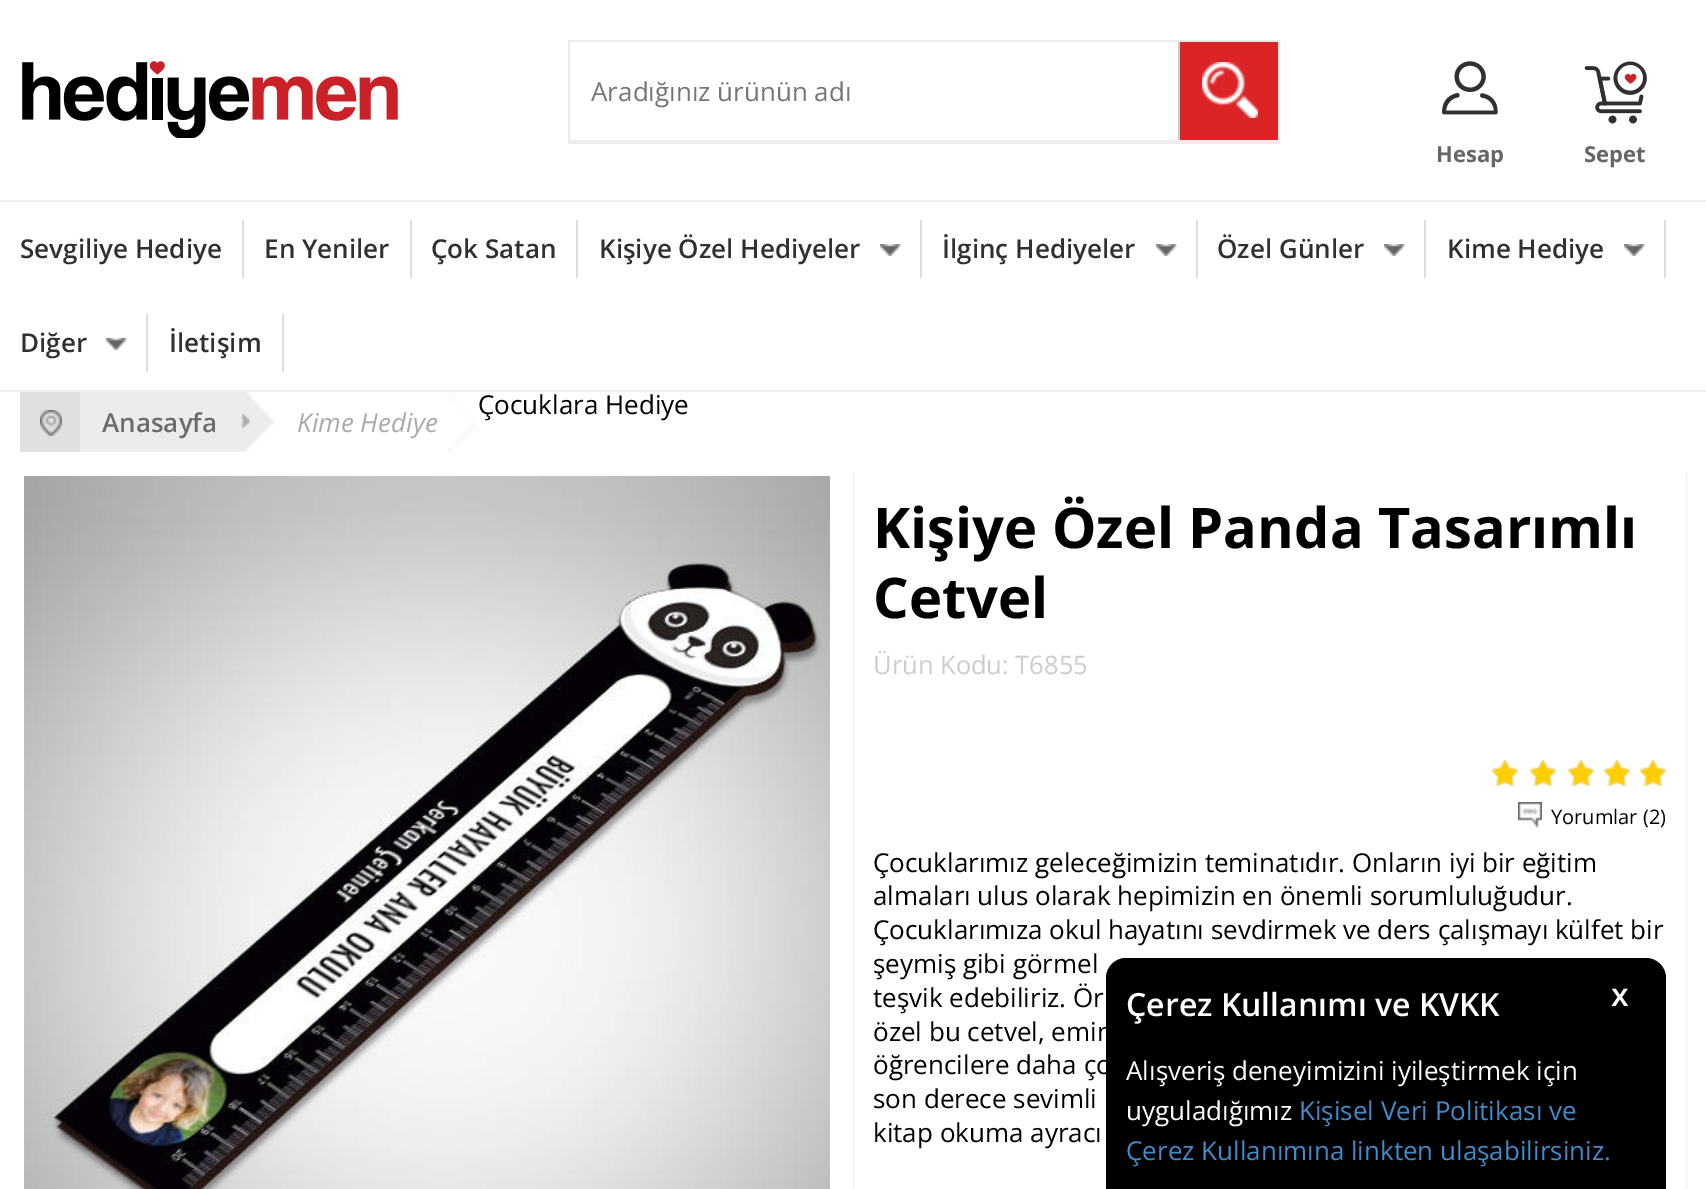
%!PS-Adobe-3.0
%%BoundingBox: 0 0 1706 1189
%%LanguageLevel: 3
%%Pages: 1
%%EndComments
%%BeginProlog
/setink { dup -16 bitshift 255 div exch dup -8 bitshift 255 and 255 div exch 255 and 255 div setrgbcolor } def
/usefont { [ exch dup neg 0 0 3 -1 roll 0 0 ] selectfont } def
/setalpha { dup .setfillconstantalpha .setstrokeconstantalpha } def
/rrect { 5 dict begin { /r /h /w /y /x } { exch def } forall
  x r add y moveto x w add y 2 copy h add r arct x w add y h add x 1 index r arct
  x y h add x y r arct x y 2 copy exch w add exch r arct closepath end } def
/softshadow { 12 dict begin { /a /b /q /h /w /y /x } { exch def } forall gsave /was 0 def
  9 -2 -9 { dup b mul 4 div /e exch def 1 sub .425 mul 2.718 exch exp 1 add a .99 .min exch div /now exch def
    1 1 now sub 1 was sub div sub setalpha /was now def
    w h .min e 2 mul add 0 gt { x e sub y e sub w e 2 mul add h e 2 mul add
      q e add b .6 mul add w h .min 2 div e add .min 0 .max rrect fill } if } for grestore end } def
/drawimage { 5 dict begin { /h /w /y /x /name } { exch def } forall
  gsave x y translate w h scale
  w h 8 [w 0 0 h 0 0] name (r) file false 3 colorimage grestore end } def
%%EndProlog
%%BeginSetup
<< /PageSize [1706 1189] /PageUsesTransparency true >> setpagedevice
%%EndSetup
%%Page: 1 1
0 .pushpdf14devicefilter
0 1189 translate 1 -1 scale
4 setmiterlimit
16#FFFFFF setink
0 0 1706 1189 rectfill
(img1.raw) 22 61 376 77 drawimage
16#ECECEC setink
2 setlinewidth
569 41 710 100 rectstroke
/OpenSans-Regular 26 usefont
16#757575 setink
591 101 moveto (Aradığınız ürünün adı) show
16#DC2426 setink
1180 42 98 98 rectfill
16#CCCCCC setink
1178 42 2 98 rectfill
(img2.raw) 1202 62 56 56 drawimage
16#ECECEC setink
568 142 712 2 rectfill
(img3.raw) 1442 61 56 54 drawimage
/OpenSans-Bold 22 usefont
16#666666 setink
1436 162 moveto (Hesap) show
(img4.raw) 1584 61 63 63 drawimage
1584 162 moveto (Sepet) show
[
    [0 200 1706 2 16#EEEEEE]
    [0 390 1706 2 16#EEEEEE]
    [242 220 2 58 16#DEDEDE]
] { aload pop setink rectfill } forall
/OpenSans-SemiBold 26 usefont
16#303030 setink
20 258 moveto (Sevgiliye Hediye) show
16#DEDEDE setink
410 220 2 58 rectfill
16#303030 setink
264 258 moveto (En Yeniler) show
16#DEDEDE setink
576 220 2 58 rectfill
16#303030 setink
431 258 moveto (Çok Satan) show
(img5.raw) 880 244 21 12 drawimage
16#DEDEDE setink
920 220 2 58 rectfill
16#303030 setink
599 258 moveto (Kişiye Özel Hediyeler) show
(img5.raw) 1156 244 21 12 drawimage
16#DEDEDE setink
1196 220 2 58 rectfill
16#303030 setink
942 258 moveto (İlginç Hediyeler) show
(img5.raw) 1384 244 21 12 drawimage
16#DEDEDE setink
1424 220 2 58 rectfill
16#303030 setink
1217 258 moveto (Özel Günler) show
(img5.raw) 1624 244 21 12 drawimage
16#DEDEDE setink
1664 220 2 58 rectfill
16#303030 setink
1447 258 moveto (Kime Hediye) show
(img5.raw) 106 338 21 12 drawimage
16#DEDEDE setink
146 314 2 58 rectfill
16#303030 setink
20 352 moveto (Diğer) show
16#DEDEDE setink
282 314 2 58 rectfill
16#303030 setink
169 352 moveto (İletişim) show
16#E0E0E0 setink
20 392 60 60 rectfill
(img6.raw) 40 410 22 26 drawimage
16#ECECEC setink
80 392 2 60 rectfill
/OpenSans-Regular 26 usefont
16#000000 setink
478 414 moveto (Çocuklara Hediye) show
(img7.raw) 82 392 193 60 drawimage
/OpenSans-SemiBold 26 usefont
16#6C6C6C setink
102 432 moveto (Anasayfa) show
(img8.raw) 446 392 30 60 drawimage
/OpenSans-Italic 26 usefont
16#AAAAAA setink
297 432 moveto (Kime Hediye) show
(img9.raw) 24 476 806 713 drawimage
gsave
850 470 moveto 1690 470 lineto 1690 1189 lineto 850 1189 lineto closepath 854 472 moveto 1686 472 lineto 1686 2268 lineto 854 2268 lineto closepath eoclip newpath
16#000000 setink
854 474 832 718 0 1 0.2 softshadow
grestore
/OpenSans-Bold 56 usefont
16#000000 setink
873 548 moveto (Kişiye Özel Panda Tasarımlı) show
873 618 moveto (Cetvel) show
/OpenSans-Regular 25.5 usefont
16#CCCCCC setink
873 674 moveto (Ürün Kodu: T6855) show
(img10.raw) 1492 760 174 26 drawimage
(img11.raw) 1492 760 174 26 drawimage
(img12.raw) 1518 802 24 26 drawimage
/OpenSans-Regular 20 usefont
16#000000 setink
1551 824 moveto (Yorumlar \(2\)) show
/OpenSans-Regular 26 usefont
[
    [(Çocuklarımız geleceğimizin teminatıdır. Onların iyi bir eğitim) 873 872]
    [(almaları ulus olarak hepimizin en önemli sorumluluğudur.) 873 905]
    [(Çocuklarımıza okul hayatını sevdirmek ve ders çalışmayı külfet bir) 873 939]
    [(şeymiş gibi görmel) 873 973]
    [(teşvik edebiliriz. Ör) 873 1007]
    [(özel bu cetvel, emin) 873 1041]
    [(öğrencilere daha ço) 873 1074]
    [(son derece sevimli) 873 1108]
    [(kitap okuma ayracı) 873 1142]
] { aload pop moveto show } forall
1126 958 moveto 1646 958 lineto 1657 958 1666 967 1666 978 curveto 1666 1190 lineto 1106 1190 lineto 1106 978 lineto 1106 967 1115 958 1126 958 curveto closepath fill
/OpenSans-SemiBold 32 usefont
16#FFFFFF setink
1126 1016 moveto (Çerez Kullanımı ve KVKK) show
1611 1006 moveto (x) show
/OpenSans-Regular 26 usefont
1126 1080 moveto (Alışveriş deneyimizini iyileştirmek için) show
1126 1120 moveto (uyguladığımız) show
16#428BCA setink
1299 1120 moveto (Kişisel Veri Politikası ve) show
1126 1160 moveto (Çerez Kullanımına linkten ulaşabilirsiniz.) show
.poppdf14devicefilter showpage
%%EOF
